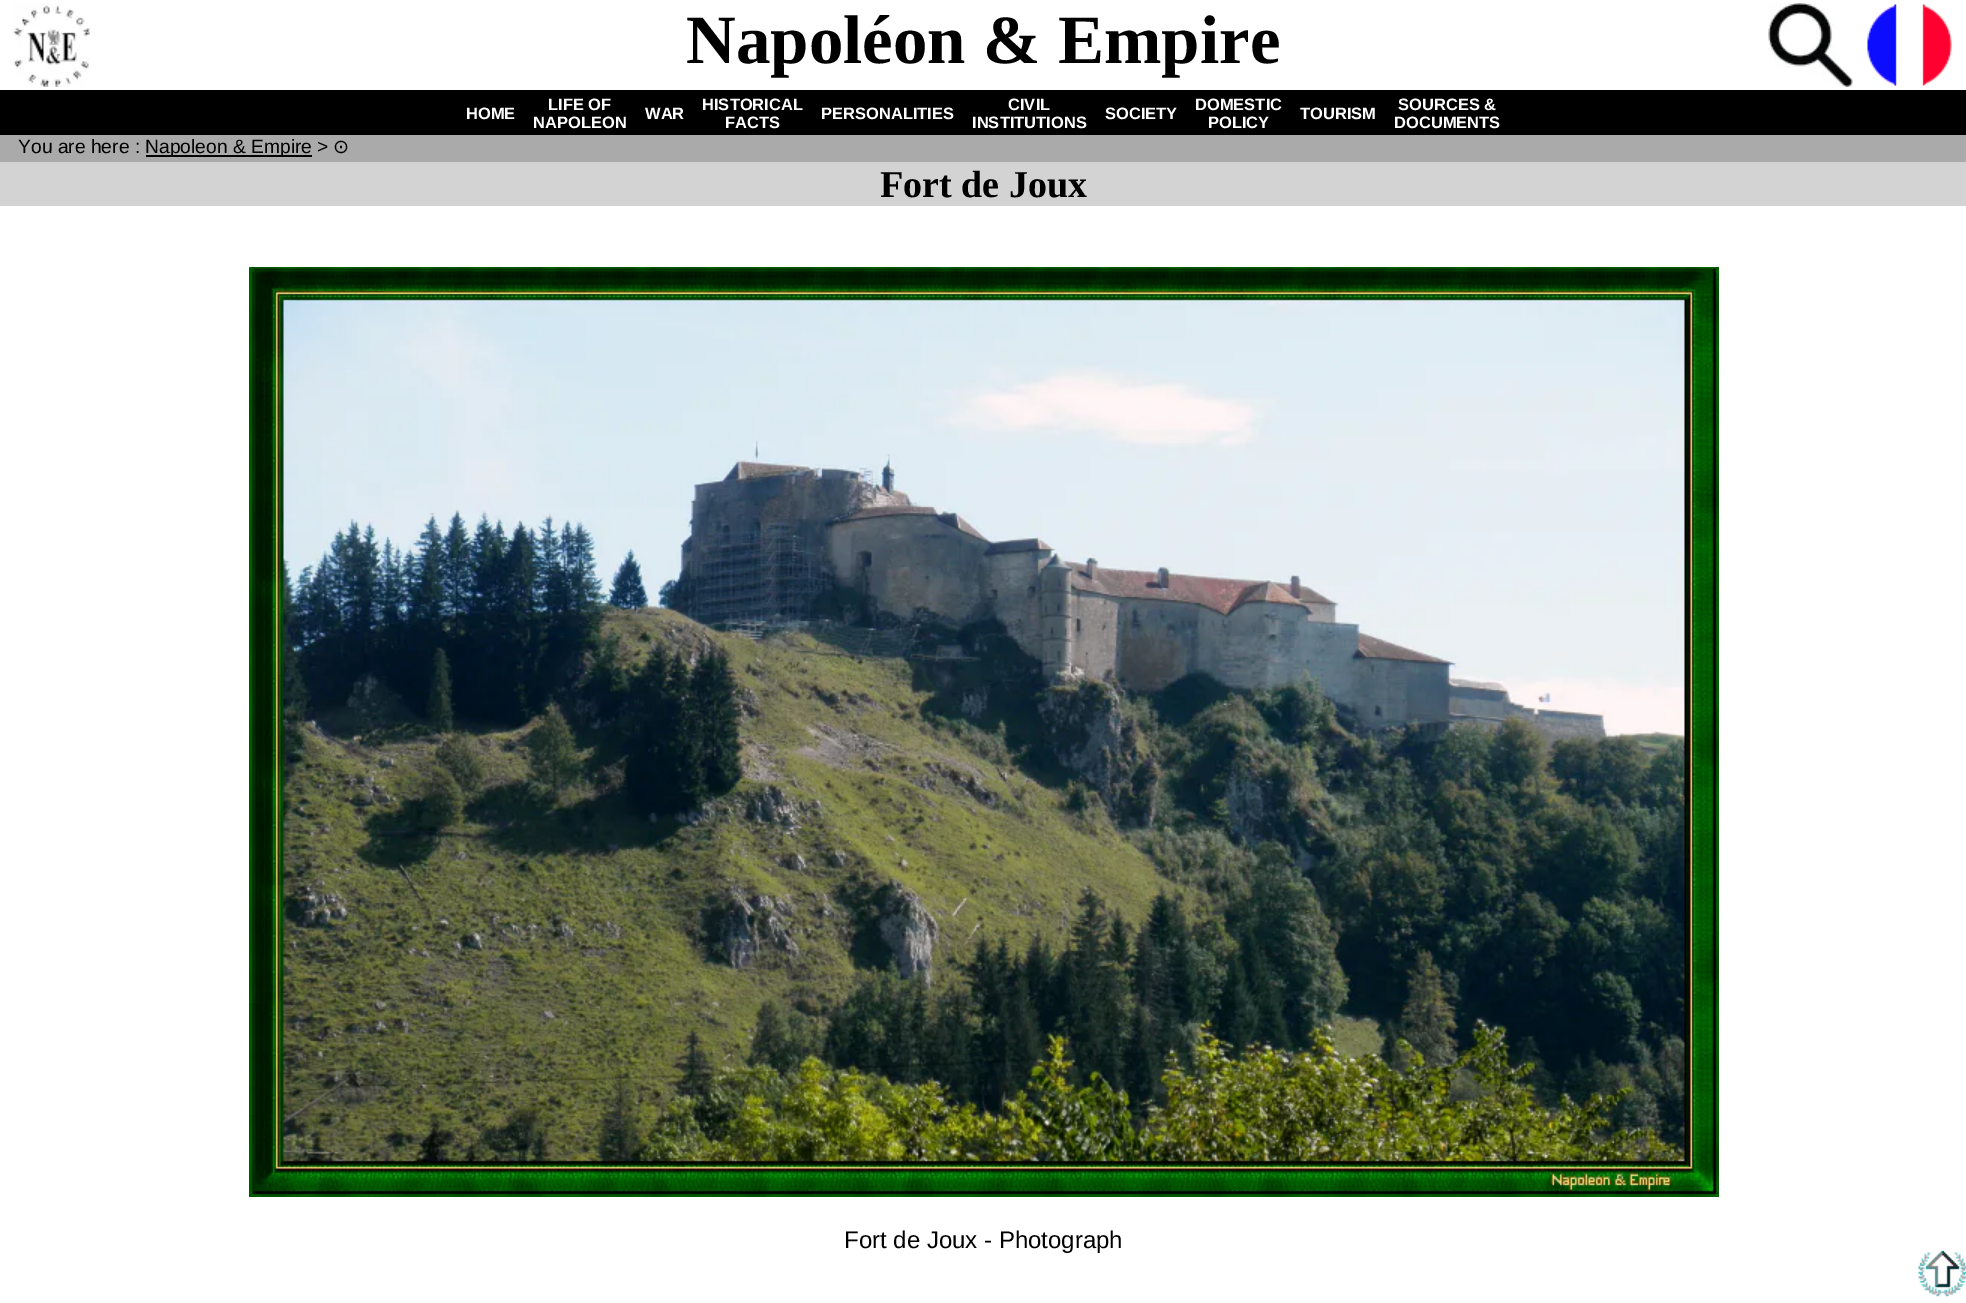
%!PS-Adobe-3.0
%%BoundingBox: 0 0 1966 1303
%%LanguageLevel: 3
%%Pages: 1
%%EndComments
%%BeginProlog
/setink { dup -16 bitshift 255 div exch dup -8 bitshift 255 and 255 div exch 255 and 255 div setrgbcolor } def
/usefont { [ exch dup neg 0 0 3 -1 roll 0 0 ] selectfont } def
/drawimage { 5 dict begin { /h /w /y /x /name } { exch def } forall
  gsave x y translate w h scale
  w h 8 [w 0 0 h 0 0] name (r) file false 3 colorimage grestore end } def
%%EndProlog
%%BeginSetup
<< /PageSize [1966 1303] >> setpagedevice
%%EndSetup
%%Page: 1 1
0 1303 translate 1 -1 scale
4 setmiterlimit
16#FFFFFF setink
0 0 1966 1303 rectfill
/LiberationSerif-Bold 69 usefont
16#000000 setink
686 63 moveto (Napoléon & Empire) show
0 90 1966 45 rectfill
/LiberationSans-Bold 16.5 usefont
16#FFFFFF setink
[
    [(HOME) 466 119]
    [(LIFE OF) 548 110]
    [(NAPOLEON) 533 128]
    [(WAR) 645 119]
    [(HISTORICAL) 702 110]
    [(FACTS) 725 128]
    [(PERSONALITIES) 821 119]
    [(CIVIL) 1008 110]
    [(INSTITUTIONS) 972 128]
    [(SOCIETY) 1105 119]
    [(DOMESTIC) 1195 110]
    [(POLICY) 1208 128]
    [(TOURISM) 1300 119]
    [(SOURCES &) 1398 110]
    [(DOCUMENTS) 1394 128]
] { aload pop moveto show } forall
(img1.raw) 13 3 77 84 drawimage
(img2.raw) 1768 3 85 84 drawimage
(img3.raw) 1867 4 85 82 drawimage
16#AAAAAA setink
0 135 1966 27 rectfill
/LiberationSans-Regular 19.25 usefont
16#000000 setink
18 153 moveto (You are here : N) show
146 155 166 2 rectfill
159 153 moveto (apoleon & Empire >) show
/DejaVuSans-Regular 19.25 usefont
333 153 moveto (⊙) show
(img4.raw) 1918 1250 48 47 drawimage
16#D3D3D3 setink
0 162 1966 44 rectfill
/LiberationSerif-Bold 38 usefont
16#000000 setink
880 197 moveto (Fort de Joux) show
(img5.raw) 249 267 1470 930 drawimage
/LiberationSans-Regular 24 usefont
844 1248 moveto (Fort de Joux - Photograph) show
showpage
%%EOF
